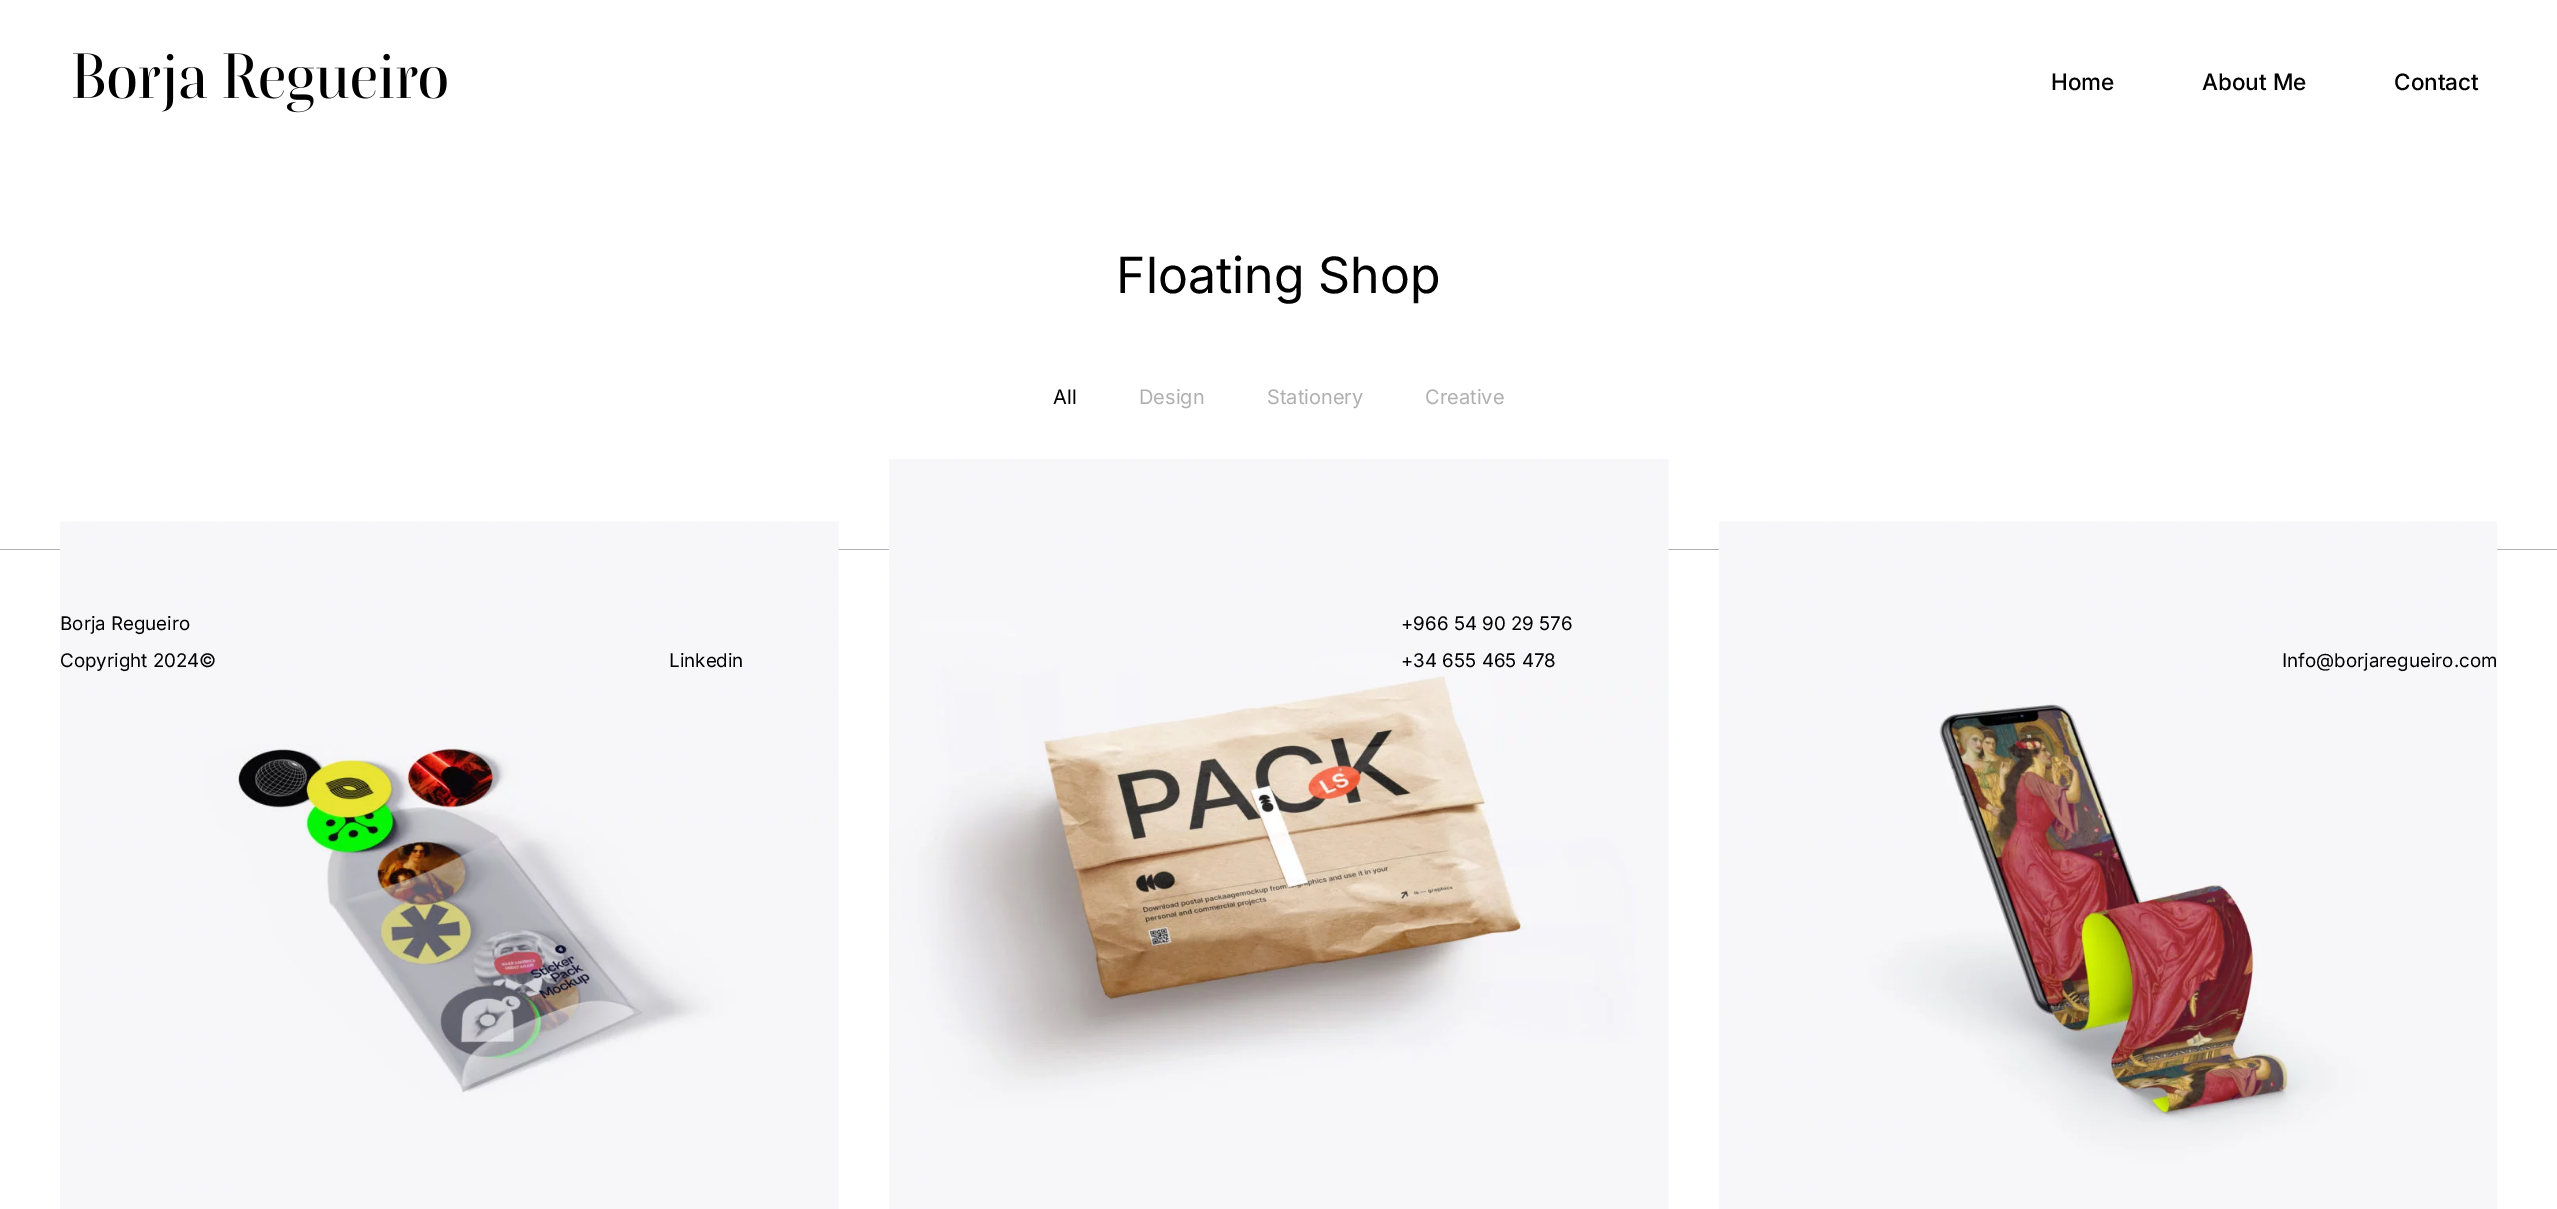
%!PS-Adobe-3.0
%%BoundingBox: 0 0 2557 1209
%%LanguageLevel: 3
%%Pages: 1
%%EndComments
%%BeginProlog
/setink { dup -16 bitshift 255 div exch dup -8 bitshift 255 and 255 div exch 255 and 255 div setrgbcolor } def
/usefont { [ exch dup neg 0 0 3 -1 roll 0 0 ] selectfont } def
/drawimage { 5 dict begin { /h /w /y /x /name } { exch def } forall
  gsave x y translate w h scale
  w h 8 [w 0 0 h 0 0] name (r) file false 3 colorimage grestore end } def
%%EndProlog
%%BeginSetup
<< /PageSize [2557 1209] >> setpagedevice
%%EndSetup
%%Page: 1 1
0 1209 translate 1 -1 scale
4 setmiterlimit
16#FFFFFF setink
0 0 2557 1209 rectfill
(img1.raw) 73 53 374 60 drawimage
/Inter-Medium 22.5 usefont
16#000000 setink
[
    [(Home) 2051 90]
    [(About Me) 2202 90]
    [(Contact) 2394 90]
] { aload pop moveto show } forall
/Inter-Regular 50 usefont
1116 293 moveto (Floating Shop) show
16#B0B0B0 setink
0 549 2557 1 rectfill
/Inter-Regular 20 usefont
16#000000 setink
1053 404 moveto (All) show
16#B0B0B0 setink
[
    [(Design) 1139 404]
    [(Stationery) 1267 404]
    [(Creative) 1425 404]
] { aload pop moveto show } forall
(img2.raw) 60 521 779 688 drawimage
(img3.raw) 888 459 781 750 drawimage
(img4.raw) 1718 521 780 688 drawimage
/Inter-Regular 18.75 usefont
16#000000 setink
[
    [(Borja Regueiro) 60 630]
    [(Copyright 2024©) 60 667]
    [(Linkedin) 669 667]
    [(+966 54 90 29 576) 1401 630]
    [(+34 655 465 478) 1401 667]
    [(Info@borjaregueiro.com) 2282 667]
] { aload pop moveto show } forall
showpage
%%EOF
